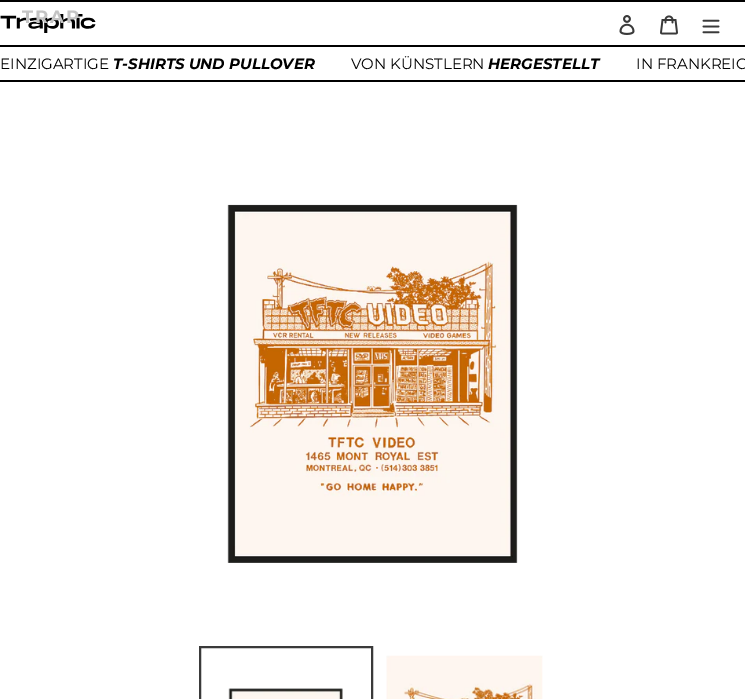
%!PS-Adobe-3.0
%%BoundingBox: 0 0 745 699
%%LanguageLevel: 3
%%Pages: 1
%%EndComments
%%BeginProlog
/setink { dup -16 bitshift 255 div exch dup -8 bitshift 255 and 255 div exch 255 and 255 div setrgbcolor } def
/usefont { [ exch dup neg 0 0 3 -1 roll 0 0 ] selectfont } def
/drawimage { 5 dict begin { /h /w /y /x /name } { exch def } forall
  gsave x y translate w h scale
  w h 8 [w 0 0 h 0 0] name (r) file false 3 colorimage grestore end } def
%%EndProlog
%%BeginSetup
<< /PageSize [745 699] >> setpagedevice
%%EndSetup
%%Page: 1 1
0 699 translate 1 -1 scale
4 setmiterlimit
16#FFFFFF setink
0 0 745 699 rectfill
16#000000 setink
0 0 745 2 rectfill
0 45 745 2 rectfill
(img1.raw) 0 14 96 19 drawimage
/Montserrat-Bold 18 usefont
16#C4C4C4 setink
22 23 moveto 2 0 (TRAP) ashow
(img2.raw) 619 15 16 20 drawimage
(img3.raw) 660 15 18 20 drawimage
(img4.raw) 702 19 18 15 drawimage
16#000000 setink
0 80 745 2 rectfill
/Montserrat-Regular 15 usefont
0 69 moveto (EINZIGARTIGE) show
/Montserrat-ThinItalic 15 usefont
113 69 moveto (T-SHIRTS UND PULLOVER) show
/Montserrat-Regular 15 usefont
351 69 moveto (VON KÜNSTLERN) show
/Montserrat-ThinItalic 15 usefont
488 69 moveto (HERGESTELLT) show
/Montserrat-Regular 15 usefont
636 69 moveto (IN FRANKREIC) show
(img5.raw) 227 204 291 359 drawimage
16#3A3A3A setink
2 setlinewidth
200 647 172 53 rectstroke
(img6.raw) 228 688 115 11 drawimage
(img7.raw) 386 655 157 44 drawimage
showpage
%%EOF
